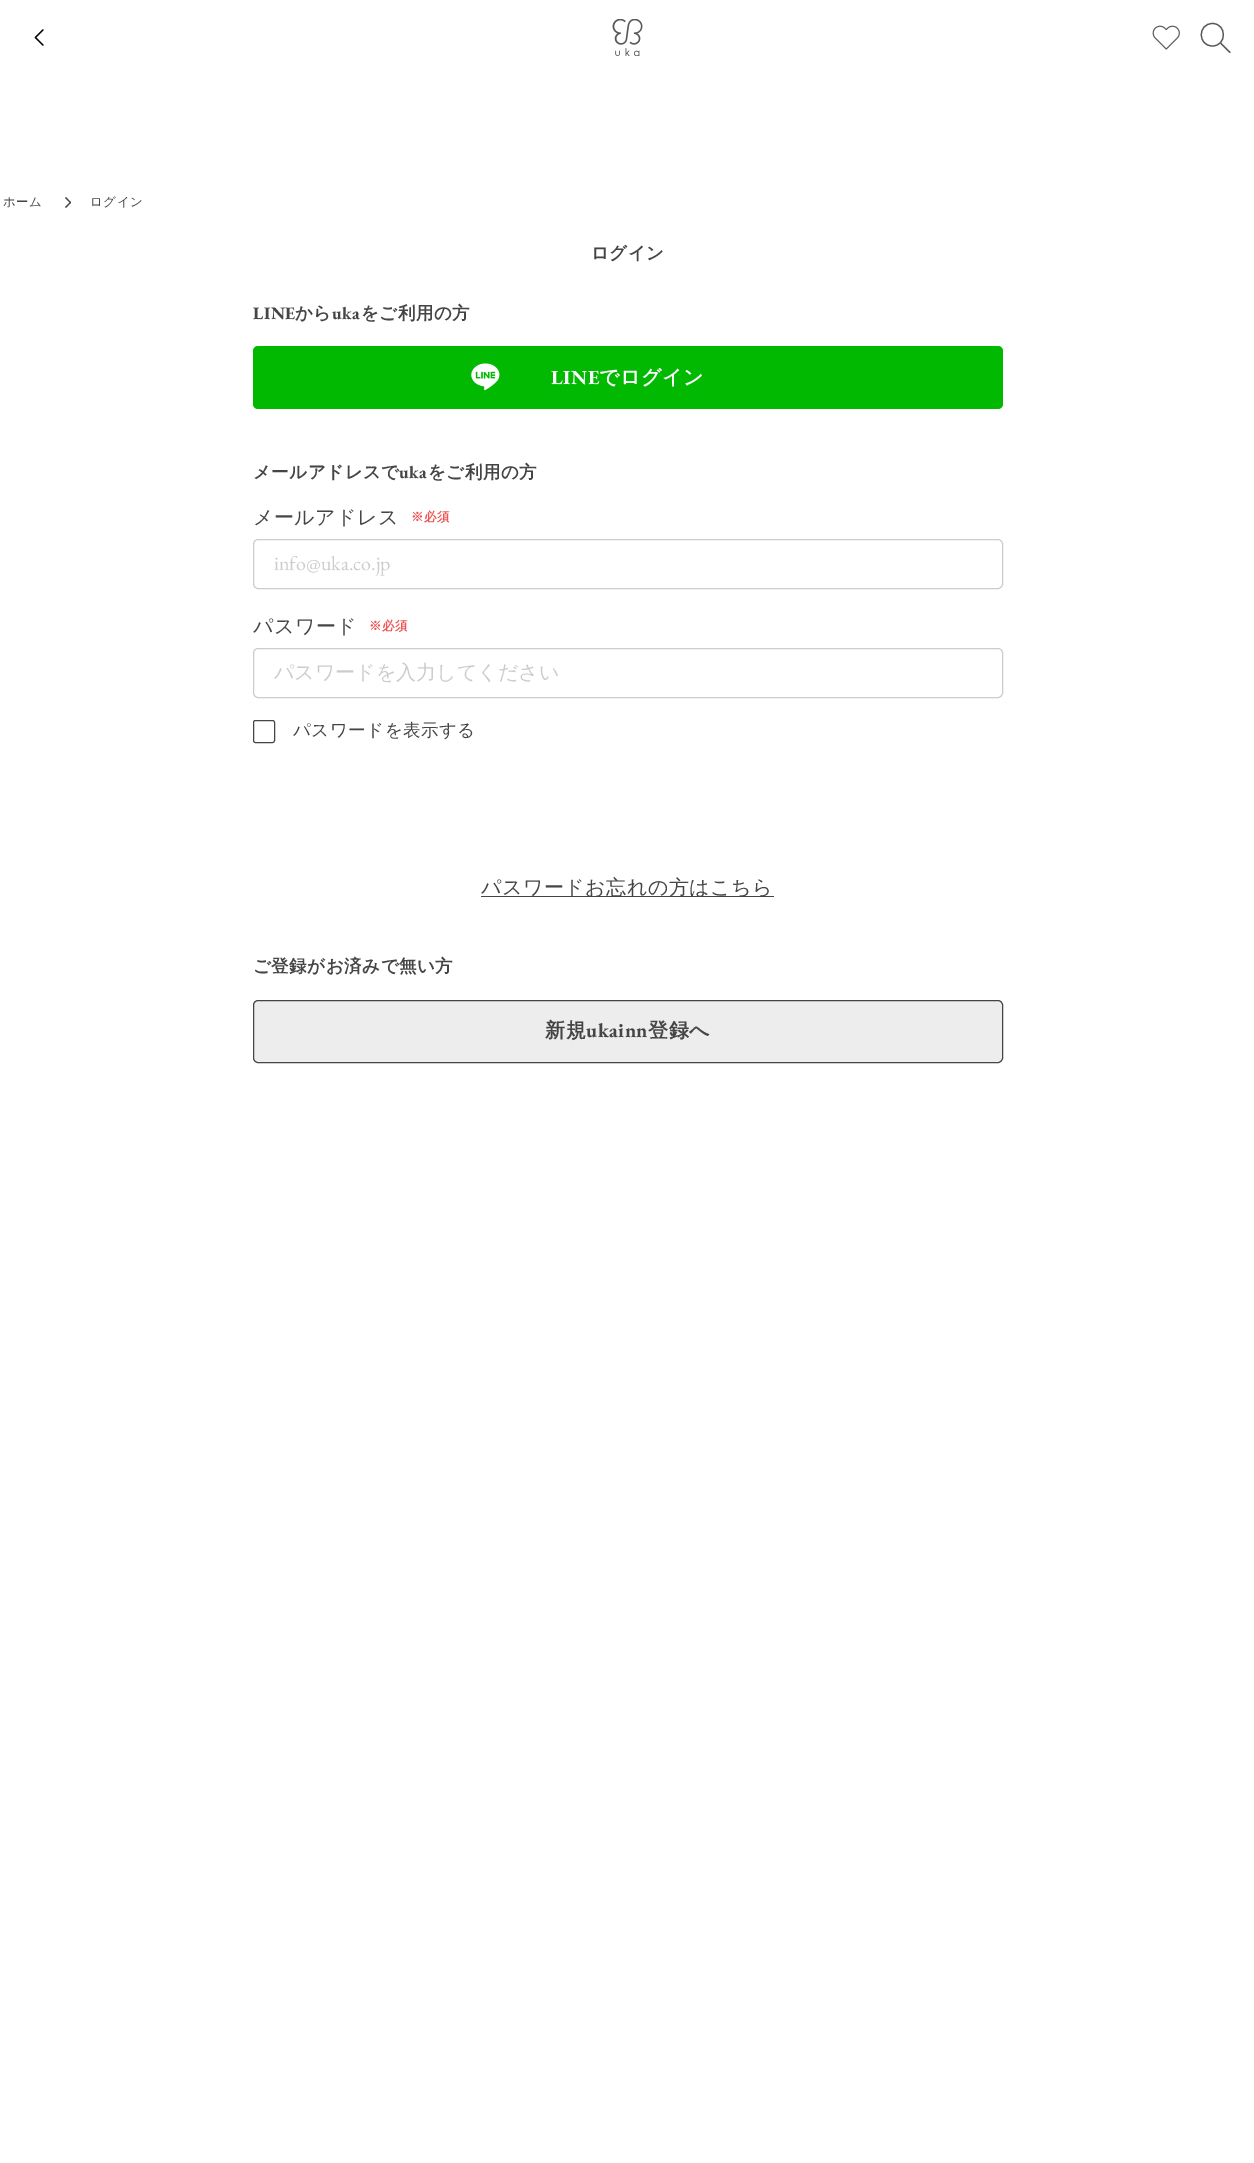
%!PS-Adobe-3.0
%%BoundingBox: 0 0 1254 2163
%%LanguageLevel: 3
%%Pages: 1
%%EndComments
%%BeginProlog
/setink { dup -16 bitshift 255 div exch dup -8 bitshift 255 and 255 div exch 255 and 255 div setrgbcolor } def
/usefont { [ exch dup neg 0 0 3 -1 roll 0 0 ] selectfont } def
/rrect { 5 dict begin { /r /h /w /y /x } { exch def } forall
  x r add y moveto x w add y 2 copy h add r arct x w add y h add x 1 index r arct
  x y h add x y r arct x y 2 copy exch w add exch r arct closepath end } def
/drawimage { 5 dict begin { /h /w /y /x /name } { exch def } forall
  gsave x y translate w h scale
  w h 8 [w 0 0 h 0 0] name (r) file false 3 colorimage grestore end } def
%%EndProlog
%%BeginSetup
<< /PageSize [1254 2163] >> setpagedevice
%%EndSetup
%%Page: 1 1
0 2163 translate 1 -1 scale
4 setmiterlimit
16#FFFFFF setink
0 0 1254 2163 rectfill
(img1.raw) 34 29 10 17 drawimage
(img2.raw) 612 19 31 37 drawimage
(img3.raw) 1152 25 28 25 drawimage
16#595757 setink
1.2 setlinewidth
1 setlinecap
1 setlinejoin
1212.5 46 moveto 1227 46 1227 23.5 1212.5 23.5 curveto 1197.5 23.5 1197.5 46 1212.5 46 curveto closepath 1230 52.5 moveto 1220.5 43 lineto stroke
/WenQuanYiZenHei-Medium 12.5 usefont
16#454545 setink
3 206 moveto 0.5 0 (ホーム) ashow
66 197 moveto 71 202.5 lineto 70.5 203.5 lineto 65 198 lineto closepath fill
70.5 201.5 moveto 71 202.5 lineto 66 208 lineto 65 207 lineto closepath fill
90 206 moveto 0.5 0 (ログイン) ashow
/WenQuanYiZenHei-Bold 17.5 usefont
591 259 moveto 0.5 0 (ログイン) ashow
/EBGaramond-Bold 17.5 usefont
253 319 moveto 0.5 0 (LINE) ashow
/WenQuanYiZenHei-Bold 17.5 usefont
295 319 moveto 0.5 0 (から) ashow
/EBGaramond-Bold 17.5 usefont
332 319 moveto 0.5 0 (uka) ashow
/WenQuanYiZenHei-Bold 17.5 usefont
361 319 moveto 0.5 0 (をご利用の方) ashow
16#00B900 setink
253 346 750 63 5 rrect fill
(img4.raw) 471 363 29 28 drawimage
/EBGaramond-Bold 20 usefont
16#FAFAFA setink
551 384 moveto 0.5 0 (LINE) ashow
/WenQuanYiZenHei-Bold 20 usefont
599 384 moveto 0.5 0 (でログイン) ashow
/WenQuanYiZenHei-Bold 17.5 usefont
16#454545 setink
253 478 moveto 0.5 0 (メールアドレスで) ashow
/EBGaramond-Bold 17.5 usefont
399 478 moveto 0.5 0 (uka) ashow
/WenQuanYiZenHei-Bold 17.5 usefont
428 478 moveto 0.5 0 (をご利用の方) ashow
/WenQuanYiZenHei-Medium 20 usefont
253 524 moveto 0.5 0 (メールアドレス) ashow
/WenQuanYiZenHei-Bold 12.5 usefont
16#ED5454 setink
411 521 moveto 0.5 0 (※必須) ashow
16#CCCCCC setink
1 setlinewidth
0 setlinecap
0 setlinejoin
253.5 539.5 749 49 4.5 rrect stroke
/EBGaramond-Regular 20 usefont
274 570 moveto (info@uka.co.jp) show
/WenQuanYiZenHei-Medium 20 usefont
16#454545 setink
253 633 moveto 0.5 0 (パスワード) ashow
/WenQuanYiZenHei-Bold 12.5 usefont
16#ED5454 setink
369 630 moveto 0.5 0 (※必須) ashow
16#CCCCCC setink
253.5 648.5 749 49 4.5 rrect stroke
/WenQuanYiZenHei-Medium 20 usefont
274 679 moveto (パスワードを入力してください) show
16#454545 setink
253.5 720.5 21 22 2 rrect stroke
/WenQuanYiZenHei-Medium 17.5 usefont
293 736 moveto 0.5 0 (パスワードを表示する) ashow
481 896 293 1 rectfill
/WenQuanYiZenHei-Medium 20 usefont
481 894 moveto 0.5 0 (パスワードお忘れの方はこちら) ashow
/WenQuanYiZenHei-Bold 17.5 usefont
253 972 moveto 0.5 0 (ご登録がお済みで無い方) ashow
16#EDEDED setink
253.5 1000.5 749 62 4.5 rrect gsave fill grestore
16#454545 setink
stroke
/WenQuanYiZenHei-Bold 20 usefont
545 1037 moveto 0.5 0 (新規) ashow
/EBGaramond-Bold 20 usefont
586 1037 moveto 0.5 0 (ukainn) ashow
/WenQuanYiZenHei-Bold 20 usefont
648 1037 moveto 0.5 0 (登録へ) ashow
showpage
%%EOF
